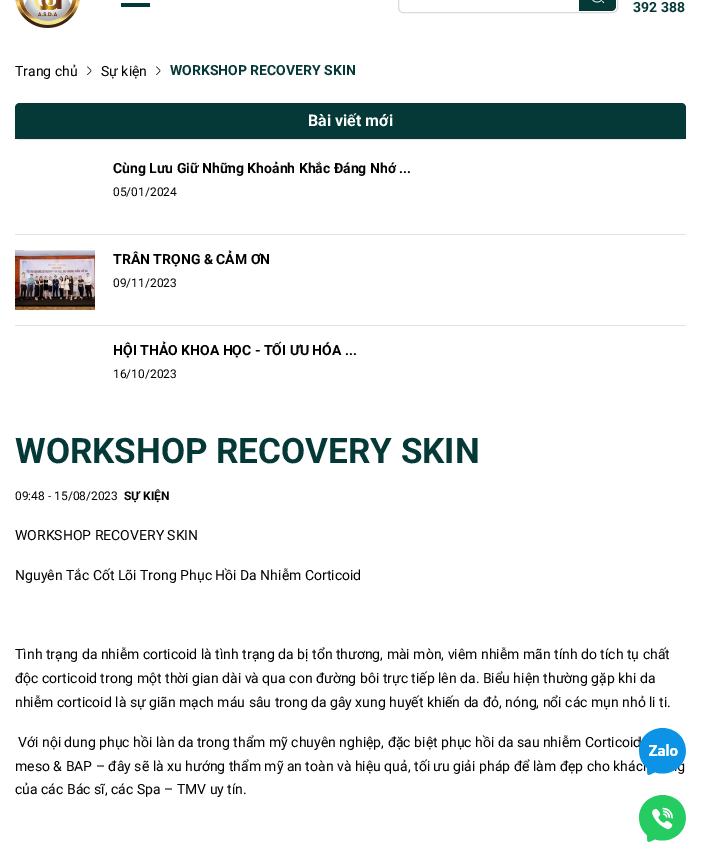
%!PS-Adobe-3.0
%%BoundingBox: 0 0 701 862
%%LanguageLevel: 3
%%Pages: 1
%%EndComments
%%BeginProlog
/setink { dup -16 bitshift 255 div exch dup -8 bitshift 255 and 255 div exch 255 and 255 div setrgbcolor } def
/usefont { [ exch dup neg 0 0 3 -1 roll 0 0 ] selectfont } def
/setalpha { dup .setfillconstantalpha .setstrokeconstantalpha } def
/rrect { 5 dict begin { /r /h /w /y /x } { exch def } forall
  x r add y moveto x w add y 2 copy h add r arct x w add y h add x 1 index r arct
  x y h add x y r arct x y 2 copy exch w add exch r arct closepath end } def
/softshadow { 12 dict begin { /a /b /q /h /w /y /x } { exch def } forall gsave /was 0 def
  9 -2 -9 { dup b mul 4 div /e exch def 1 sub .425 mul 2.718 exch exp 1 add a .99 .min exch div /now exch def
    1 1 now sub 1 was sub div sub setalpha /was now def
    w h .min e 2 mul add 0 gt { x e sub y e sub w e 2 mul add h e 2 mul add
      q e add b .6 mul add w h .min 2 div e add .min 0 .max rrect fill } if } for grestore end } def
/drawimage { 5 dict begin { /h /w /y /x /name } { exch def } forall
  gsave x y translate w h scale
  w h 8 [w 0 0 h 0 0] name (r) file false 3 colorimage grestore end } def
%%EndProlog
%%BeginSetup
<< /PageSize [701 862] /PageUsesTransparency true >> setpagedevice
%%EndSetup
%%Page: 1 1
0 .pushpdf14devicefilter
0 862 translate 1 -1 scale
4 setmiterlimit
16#FFFFFF setink
0 0 701 862 rectfill
(img1.raw) 15 0 65 28 drawimage
16#053937 setink
121 3 29 4 rectfill
16#DBDBDB setink
398.5 -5.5 219 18 4.5 rrect stroke
16#053937 setink
579 -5 moveto 611 -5 lineto 614 -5 616 -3 616 0 curveto 616 6 lineto 616 9 614 11 611 11 curveto 579 11 lineto closepath fill
(img2.raw) 592 0 13 4 drawimage
/Roboto-Bold 14 usefont
633 12 moveto (392 388) show
/Roboto-Regular 14 usefont
16#000000 setink
15 76 moveto (Trang chủ) show
(img3.raw) 87 66 5 10 drawimage
101 76 moveto (Sự kiện) show
(img3.raw) 156 66 5 10 drawimage
/Roboto-Bold 14 usefont
16#053937 setink
170 75 moveto (WORKSHOP RECOVERY SKIN) show
16#000000 setink
15 104 671 36 5 0.5 0.1 softshadow
16#053937 setink
20 103 moveto 681 103 lineto 684 103 686 105 686 108 curveto 686 139 lineto 15 139 lineto 15 108 lineto 15 105 17 103 20 103 curveto closepath fill
/Roboto-Bold 16 usefont
16#FFFFFF setink
308 126 moveto (Bài viết mới) show
16#E3E3E3 setink
15 234 671 1 rectfill
/Roboto-Bold 14 usefont
16#000000 setink
113 173 moveto (Cùng Lưu Giữ Những Khoảnh Khắc Đáng Nhớ ...) show
/Roboto-Regular 12 usefont
113 196 moveto (05/01/2024) show
16#E3E3E3 setink
15 325 671 1 rectfill
(img4.raw) 15 250 80 60 drawimage
/Roboto-Bold 14 usefont
16#000000 setink
113 264 moveto (TRÂN TRỌNG & CẢM ƠN) show
/Roboto-Regular 12 usefont
113 287 moveto (09/11/2023) show
/Roboto-Bold 14 usefont
113 355 moveto (HỘI THẢO KHOA HỌC - TỐI ƯU HÓA ...) show
/Roboto-Regular 12 usefont
113 378 moveto (16/10/2023) show
/Roboto-Bold 35 usefont
16#053937 setink
15 463 moveto (WORKSHOP RECOVERY SKIN) show
/Roboto-Regular 12 usefont
16#000000 setink
15 500 moveto (09:48 - 15/08/2023) show
/Roboto-Bold 12 usefont
124 500 moveto (SỰ KIỆN) show
/Roboto-Regular 14 usefont
[
    [(WORKSHOP RECOVERY SKIN) 15 540]
    [(Nguyên Tắc Cốt Lõi Trong Phục Hồi Da Nhiễm Corticoid) 15 580]
    [(Tình trạng da nhiễm corticoid là tình trạng da bị tổn thương, mài mòn, viêm nhiễm mãn tính do tích tụ chất) 15 659]
    [(độc corticoid trong một thời gian dài và qua con đường bôi trực tiếp lên da. Biểu hiện thường gặp khi da) 15 683]
    [(nhiễm corticoid là sự giãn mạch máu sâu trong da gây xung huyết khiến da đỏ, nóng, nổi các mụn nhỏ li ti.) 15 707]
    [(Với nội dung phục hồi làn da trong thẩm mỹ chuyên nghiệp, đặc biệt phục hồi da sau nhiễm Corticoid) 18 747]
    [(meso & BAP – đây sẽ là xu hướng thẩm mỹ an toàn và hiệu quả, tối ưu giải pháp để làm đẹp cho khác) 15 771]
    [(của các Bác sĩ, các Spa – TMV uy tín.) 15 794]
] { aload pop moveto show } forall
(img5.raw) 639 728 47 47 drawimage
(img6.raw) 639 795 47 47 drawimage
.poppdf14devicefilter showpage
%%EOF
